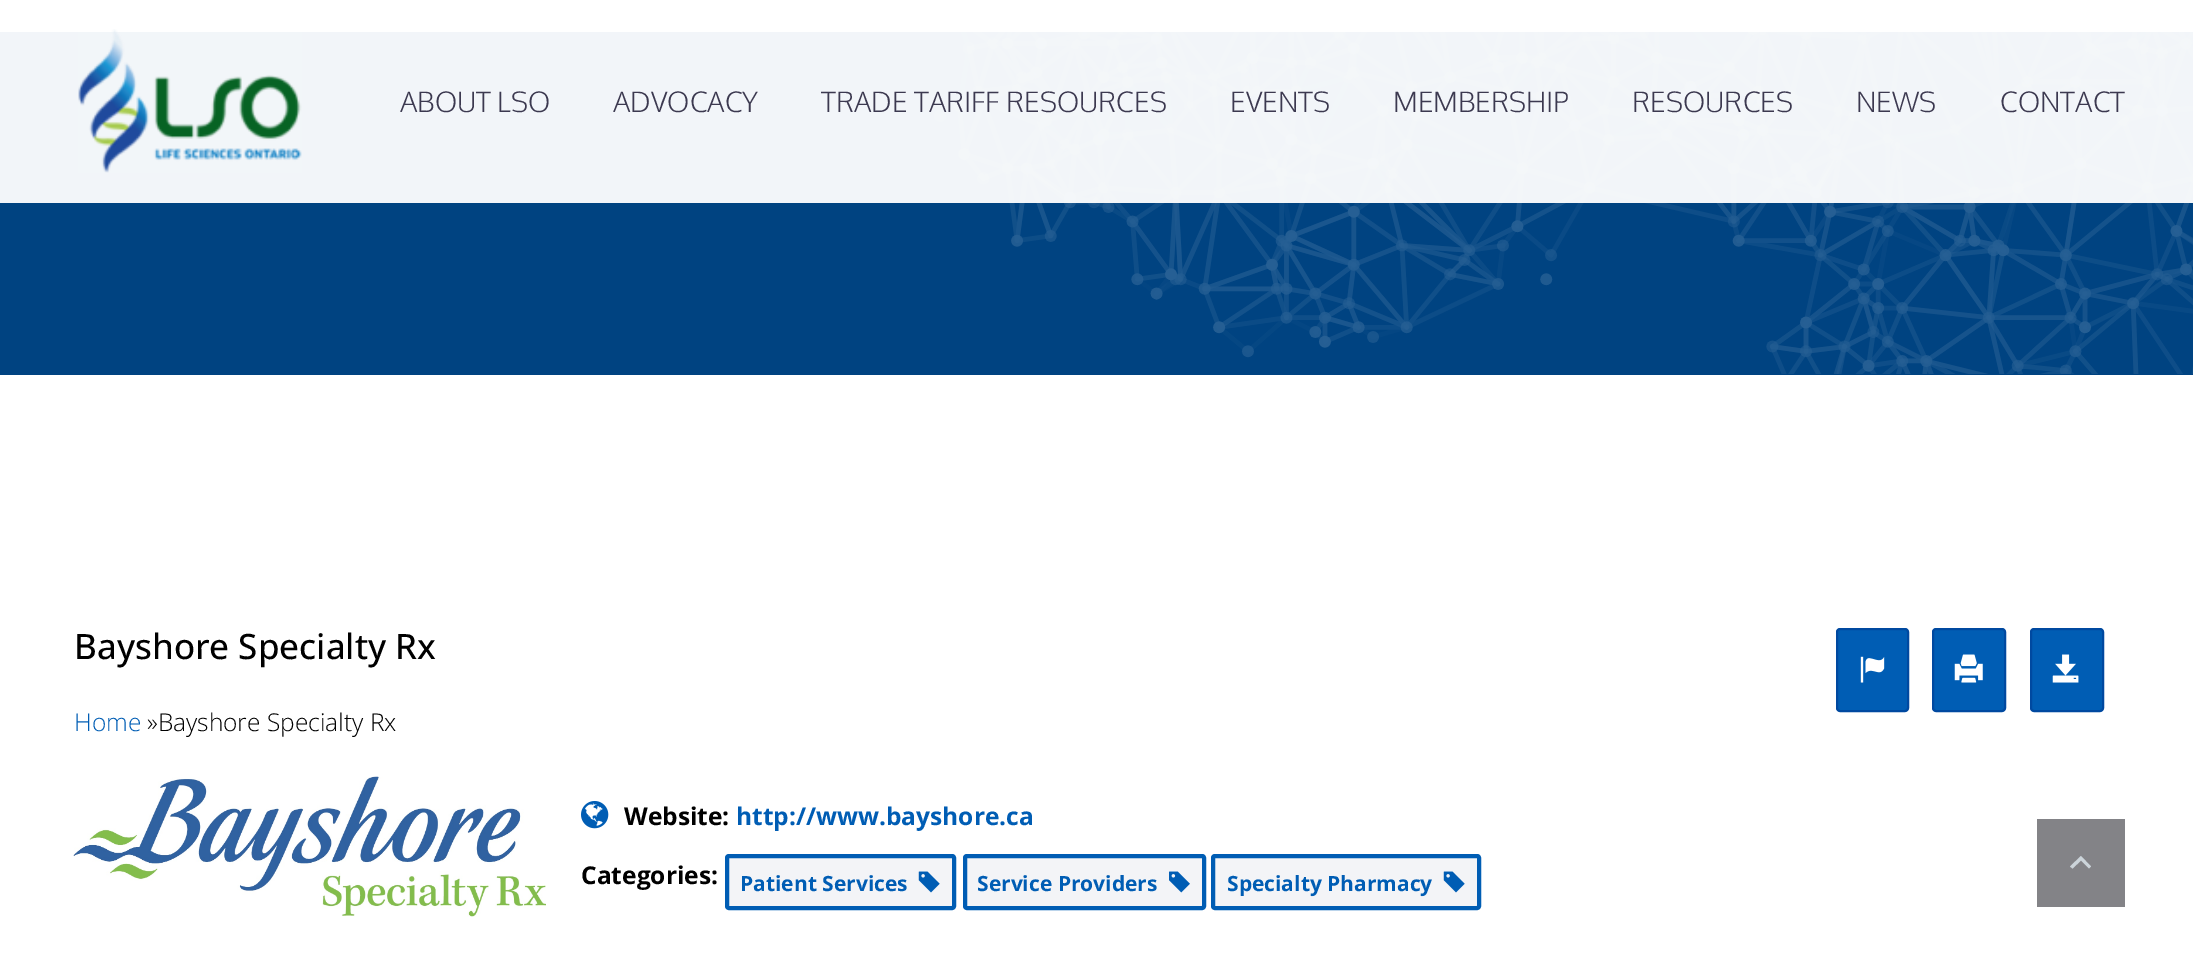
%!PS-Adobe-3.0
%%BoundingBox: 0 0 2193 967
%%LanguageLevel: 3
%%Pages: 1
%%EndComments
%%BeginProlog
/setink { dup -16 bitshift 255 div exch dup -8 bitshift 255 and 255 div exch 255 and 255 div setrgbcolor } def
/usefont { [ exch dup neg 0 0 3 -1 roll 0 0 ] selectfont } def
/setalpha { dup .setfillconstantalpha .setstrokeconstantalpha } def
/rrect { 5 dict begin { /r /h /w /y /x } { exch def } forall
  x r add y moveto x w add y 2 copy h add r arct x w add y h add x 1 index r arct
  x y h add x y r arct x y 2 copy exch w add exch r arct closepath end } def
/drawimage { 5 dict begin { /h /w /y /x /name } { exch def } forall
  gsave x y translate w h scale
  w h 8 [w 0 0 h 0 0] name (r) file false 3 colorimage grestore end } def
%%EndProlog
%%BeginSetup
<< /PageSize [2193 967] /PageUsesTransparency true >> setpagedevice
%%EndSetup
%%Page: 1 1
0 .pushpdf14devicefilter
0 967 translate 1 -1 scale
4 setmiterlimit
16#FFFFFF setink
0 0 2193 967 rectfill
16#004381 setink
0 32 2193 343 rectfill
(img2.raw) 934 32 1259 342 drawimage
0.95 setalpha
16#FFFFFF setink
0 32 2193 171 rectfill
1 setalpha
(img1.raw) 78 29 224 144 drawimage
/Oxygen-Light 28 usefont
16#3C3950 setink
[
    [(ABOUT LSO) 400 112]
    [(ADVOCACY) 613 112]
    [(TRADE TARIFF RESOURCES) 821 112]
    [(EVENTS) 1230 112]
    [(MEMBERSHIP) 1393 112]
    [(RESOURCES) 1632 112]
    [(NEWS) 1856 112]
    [(CONTACT) 2000 112]
] { aload pop moveto show } forall
/OpenSans-Medium 35 usefont
16#000000 setink
74 659 moveto (Bayshore Specialty Rx) show
16#005DB4 setink
1837 629 71 82 3 rrect gsave fill grestore
16#0049A0 setink
2 setlinewidth
stroke
(img3.raw) 1860 656 25 27 drawimage
16#005DB4 setink
1933 629 72 82 3 rrect gsave fill grestore
16#0049A0 setink
stroke
(img4.raw) 1954 654 29 29 drawimage
16#005DB4 setink
2031 629 72 82 3 rrect gsave fill grestore
16#0049A0 setink
stroke
(img5.raw) 2052 654 27 29 drawimage
/OpenSans-Light 24.5 usefont
16#005DB4 setink
74 731 moveto (Home) show
16#000000 setink
147 731 moveto (»Bayshore Specialty Rx) show
(img6.raw) 73 776 473 141 drawimage
(img7.raw) 581 801 28 28 drawimage
/OpenSans-Bold 24.5 usefont
624 825 moveto (Website:) show
16#005DB4 setink
736 825 moveto (http://www.bayshore.ca) show
16#000000 setink
581 884 moveto (Categories:) show
16#F3F4F7 setink
727 856 227 52 2 rrect gsave fill grestore
16#005DB4 setink
4 setlinewidth
stroke
/OpenSans-Bold 21 usefont
740 891 moveto (Patient Services) show
(img8.raw) 918 871 22 22 drawimage
16#F3F4F7 setink
965 856 239 52 2 rrect gsave fill grestore
16#005DB4 setink
stroke
977 891 moveto (Service Providers) show
(img9.raw) 1169 871 21 22 drawimage
16#F3F4F7 setink
1213 856 266 52 2 rrect gsave fill grestore
16#005DB4 setink
stroke
1227 891 moveto (Specialty Pharmacy) show
(img8.raw) 1443 871 22 22 drawimage
16#838387 setink
2037 819 88 88 rectfill
16#CCD4DA setink
2072.5 868.5 moveto 2081 860.5 lineto 2089 868.5 lineto 2091 866.5 lineto 2081 856 lineto 2070 866.5 lineto closepath fill
.poppdf14devicefilter showpage
%%EOF
